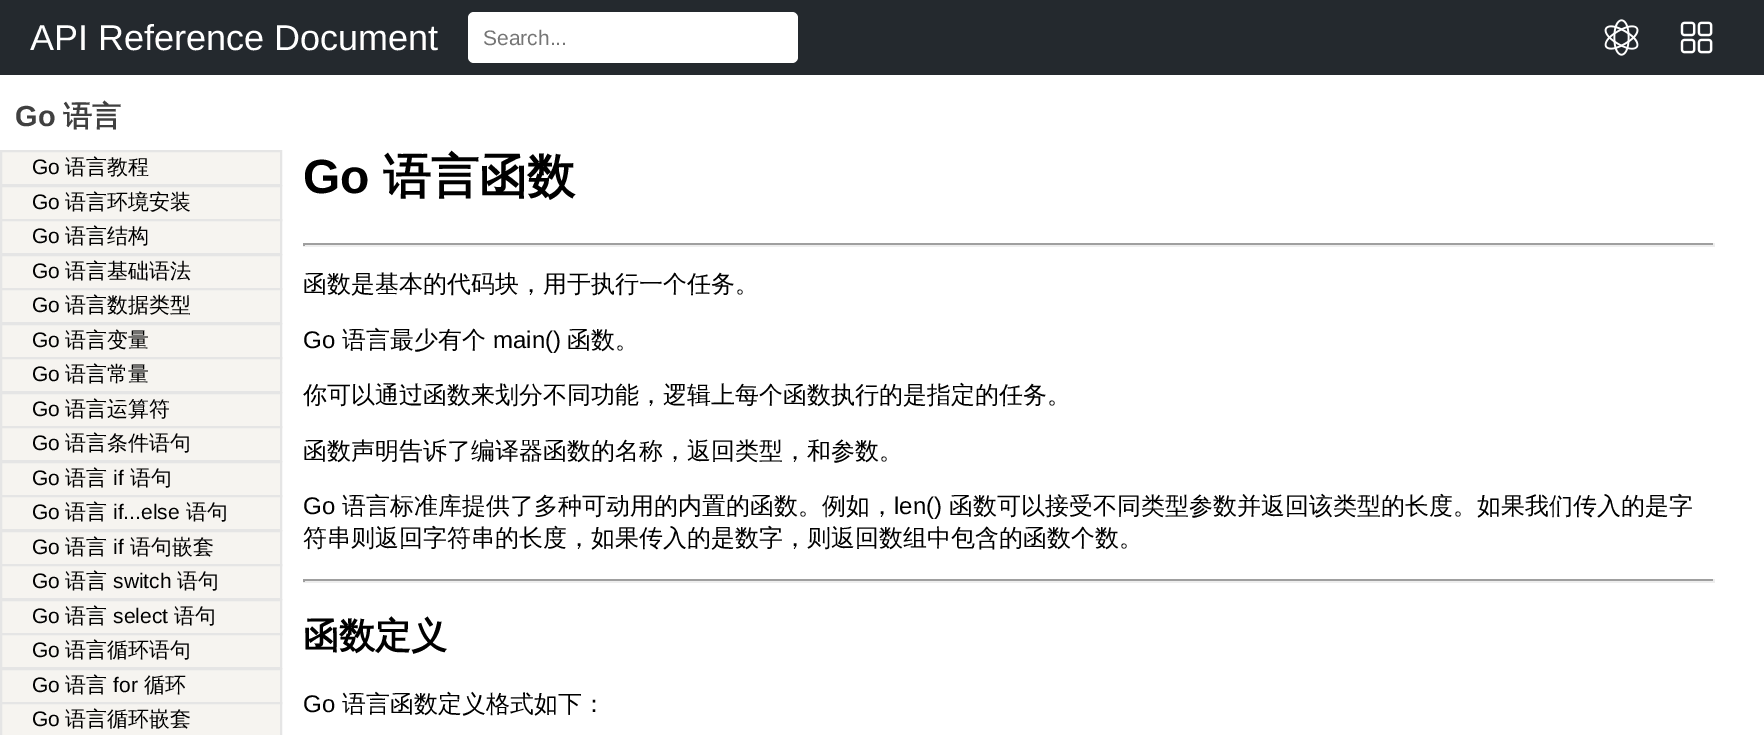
%!PS-Adobe-3.0
%%BoundingBox: 0 0 1764 735
%%LanguageLevel: 3
%%Pages: 1
%%EndComments
%%BeginProlog
/setink { dup -16 bitshift 255 div exch dup -8 bitshift 255 and 255 div exch 255 and 255 div setrgbcolor } def
/usefont { [ exch dup neg 0 0 3 -1 roll 0 0 ] selectfont } def
/rrect { 5 dict begin { /r /h /w /y /x } { exch def } forall
  x r add y moveto x w add y 2 copy h add r arct x w add y h add x 1 index r arct
  x y h add x y r arct x y 2 copy exch w add exch r arct closepath end } def
/drawimage { 5 dict begin { /h /w /y /x /name } { exch def } forall
  gsave x y translate w h scale
  w h 8 [w 0 0 h 0 0] name (r) file false 3 colorimage grestore end } def
%%EndProlog
%%BeginSetup
<< /PageSize [1764 735] >> setpagedevice
%%EndSetup
%%Page: 1 1
0 735 translate 1 -1 scale
4 setmiterlimit
16#FFFFFF setink
0 0 1764 735 rectfill
16#24292E setink
0 0 1764 75 rectfill
/LiberationSans-Regular 36 usefont
16#FFFFFF setink
30 50 moveto (API Reference Document) show
468 12 330 51 6 rrect fill
/LiberationSans-Regular 21 usefont
16#757575 setink
483 45 moveto (Search...) show
(img1.raw) 1604 19 35 37 drawimage
(img2.raw) 1680 21 33 33 drawimage
/LiberationSans-Bold 29 usefont
16#404040 setink
15 126 moveto (Go) show
/WenQuanYiZenHei-Bold 29 usefont
63 126 moveto (语言) show
16#F6F4F0 setink
1 151 moveto 281 151 lineto 281 185 lineto 1 185 lineto closepath gsave fill grestore
16#E5E5E5 setink
2 setlinewidth
stroke
/LiberationSans-Regular 21 usefont
16#000000 setink
32 174 moveto (Go) show
/WenQuanYiZenHei-Medium 21 usefont
65 174 moveto (语言教程) show
16#F6F4F0 setink
1 186 moveto 281 186 lineto 281 220 lineto 1 220 lineto closepath gsave fill grestore
16#E5E5E5 setink
stroke
/LiberationSans-Regular 21 usefont
16#000000 setink
32 209 moveto (Go) show
/WenQuanYiZenHei-Medium 21 usefont
65 209 moveto (语言环境安装) show
16#F6F4F0 setink
1 220 moveto 281 220 lineto 281 254 lineto 1 254 lineto closepath gsave fill grestore
16#E5E5E5 setink
stroke
/LiberationSans-Regular 21 usefont
16#000000 setink
32 243 moveto (Go) show
/WenQuanYiZenHei-Medium 21 usefont
65 243 moveto (语言结构) show
16#F6F4F0 setink
1 255 moveto 281 255 lineto 281 289 lineto 1 289 lineto closepath gsave fill grestore
16#E5E5E5 setink
stroke
/LiberationSans-Regular 21 usefont
16#000000 setink
32 278 moveto (Go) show
/WenQuanYiZenHei-Medium 21 usefont
65 278 moveto (语言基础语法) show
16#F6F4F0 setink
1 289 moveto 281 289 lineto 281 323 lineto 1 323 lineto closepath gsave fill grestore
16#E5E5E5 setink
stroke
/LiberationSans-Regular 21 usefont
16#000000 setink
32 312 moveto (Go) show
/WenQuanYiZenHei-Medium 21 usefont
65 312 moveto (语言数据类型) show
16#F6F4F0 setink
1 324 moveto 281 324 lineto 281 358 lineto 1 358 lineto closepath gsave fill grestore
16#E5E5E5 setink
stroke
/LiberationSans-Regular 21 usefont
16#000000 setink
32 347 moveto (Go) show
/WenQuanYiZenHei-Medium 21 usefont
65 347 moveto (语言变量) show
16#F6F4F0 setink
1 358 moveto 281 358 lineto 281 392 lineto 1 392 lineto closepath gsave fill grestore
16#E5E5E5 setink
stroke
/LiberationSans-Regular 21 usefont
16#000000 setink
32 381 moveto (Go) show
/WenQuanYiZenHei-Medium 21 usefont
65 381 moveto (语言常量) show
16#F6F4F0 setink
1 393 moveto 281 393 lineto 281 427 lineto 1 427 lineto closepath gsave fill grestore
16#E5E5E5 setink
stroke
/LiberationSans-Regular 21 usefont
16#000000 setink
32 416 moveto (Go) show
/WenQuanYiZenHei-Medium 21 usefont
65 416 moveto (语言运算符) show
16#F6F4F0 setink
1 427 moveto 281 427 lineto 281 461 lineto 1 461 lineto closepath gsave fill grestore
16#E5E5E5 setink
stroke
/LiberationSans-Regular 21 usefont
16#000000 setink
32 450 moveto (Go) show
/WenQuanYiZenHei-Medium 21 usefont
65 450 moveto (语言条件语句) show
16#F6F4F0 setink
1 462 moveto 281 462 lineto 281 496 lineto 1 496 lineto closepath gsave fill grestore
16#E5E5E5 setink
stroke
/LiberationSans-Regular 21 usefont
16#000000 setink
32 485 moveto (Go) show
/WenQuanYiZenHei-Medium 21 usefont
65 485 moveto (语言) show
/LiberationSans-Regular 21 usefont
113 485 moveto (if) show
/WenQuanYiZenHei-Medium 21 usefont
130 485 moveto (语句) show
16#F6F4F0 setink
1 496 moveto 281 496 lineto 281 530 lineto 1 530 lineto closepath gsave fill grestore
16#E5E5E5 setink
stroke
/LiberationSans-Regular 21 usefont
16#000000 setink
32 519 moveto (Go) show
/WenQuanYiZenHei-Medium 21 usefont
65 519 moveto (语言) show
/LiberationSans-Regular 21 usefont
113 519 moveto (if...else) show
/WenQuanYiZenHei-Medium 21 usefont
186 519 moveto (语句) show
16#F6F4F0 setink
1 531 moveto 281 531 lineto 281 565 lineto 1 565 lineto closepath gsave fill grestore
16#E5E5E5 setink
stroke
/LiberationSans-Regular 21 usefont
16#000000 setink
32 554 moveto (Go) show
/WenQuanYiZenHei-Medium 21 usefont
65 554 moveto (语言) show
/LiberationSans-Regular 21 usefont
113 554 moveto (if) show
/WenQuanYiZenHei-Medium 21 usefont
130 554 moveto (语句嵌套) show
16#F6F4F0 setink
1 565 moveto 281 565 lineto 281 599 lineto 1 599 lineto closepath gsave fill grestore
16#E5E5E5 setink
stroke
/LiberationSans-Regular 21 usefont
16#000000 setink
32 588 moveto (Go) show
/WenQuanYiZenHei-Medium 21 usefont
65 588 moveto (语言) show
/LiberationSans-Regular 21 usefont
113 588 moveto (switch) show
/WenQuanYiZenHei-Medium 21 usefont
177 588 moveto (语句) show
16#F6F4F0 setink
1 600 moveto 281 600 lineto 281 634 lineto 1 634 lineto closepath gsave fill grestore
16#E5E5E5 setink
stroke
/LiberationSans-Regular 21 usefont
16#000000 setink
32 623 moveto (Go) show
/WenQuanYiZenHei-Medium 21 usefont
65 623 moveto (语言) show
/LiberationSans-Regular 21 usefont
113 623 moveto (select) show
/WenQuanYiZenHei-Medium 21 usefont
174 623 moveto (语句) show
16#F6F4F0 setink
1 634 moveto 281 634 lineto 281 668 lineto 1 668 lineto closepath gsave fill grestore
16#E5E5E5 setink
stroke
/LiberationSans-Regular 21 usefont
16#000000 setink
32 657 moveto (Go) show
/WenQuanYiZenHei-Medium 21 usefont
65 657 moveto (语言循环语句) show
16#F6F4F0 setink
1 669 moveto 281 669 lineto 281 703 lineto 1 703 lineto closepath gsave fill grestore
16#E5E5E5 setink
stroke
/LiberationSans-Regular 21 usefont
16#000000 setink
32 692 moveto (Go) show
/WenQuanYiZenHei-Medium 21 usefont
65 692 moveto (语言) show
/LiberationSans-Regular 21 usefont
113 692 moveto (for) show
/WenQuanYiZenHei-Medium 21 usefont
144 692 moveto (循环) show
16#F6F4F0 setink
1 703 moveto 281 703 lineto 281 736 lineto 1 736 lineto closepath gsave fill grestore
16#E5E5E5 setink
stroke
/LiberationSans-Regular 21 usefont
16#000000 setink
32 726 moveto (Go) show
/WenQuanYiZenHei-Medium 21 usefont
65 726 moveto (语言循环嵌套) show
/LiberationSans-Bold 48 usefont
303 193 moveto (Go) show
/WenQuanYiZenHei-Bold 48 usefont
383 193 moveto (语言函数) show
[
    [303 243 1412 2 16#9F9F9F]
    [1713 243 2 3 16#EEEEEE]
    [303 245 1412 2 16#EEEEEE]
    [303 243 2 3 16#9F9F9F]
] { aload pop setink rectfill } forall
/WenQuanYiZenHei-Medium 24 usefont
16#000000 setink
303 292 moveto (函数是基本的代码块，用于执行一个任务。) show
/LiberationSans-Regular 24 usefont
303 348 moveto (Go) show
/WenQuanYiZenHei-Medium 24 usefont
342 348 moveto (语言最少有个) show
/LiberationSans-Regular 24 usefont
493 348 moveto (main\(\)) show
/WenQuanYiZenHei-Medium 24 usefont
[
    [(函数。) 567 348]
    [(你可以通过函数来划分不同功能，逻辑上每个函数执行的是指定的任务。) 303 403]
    [(函数声明告诉了编译器函数的名称，返回类型，和参数。) 303 459]
] { aload pop moveto show } forall
/LiberationSans-Regular 24 usefont
303 514 moveto (Go) show
/WenQuanYiZenHei-Medium 24 usefont
342 514 moveto (语言标准库提供了多种可动用的内置的函数。例如，) show
/LiberationSans-Regular 24 usefont
894 514 moveto (len\(\)) show
/WenQuanYiZenHei-Medium 24 usefont
949 514 moveto (函数可以接受不同类型参数并返回该类型的长度。如果我们传入的是字) show
303 546 moveto (符串则返回字符串的长度，如果传入的是数字，则返回数组中包含的函数个数。) show
[
    [303 579 1412 2 16#9F9F9F]
    [1713 579 2 3 16#EEEEEE]
    [303 581 1412 2 16#EEEEEE]
    [303 579 2 3 16#9F9F9F]
] { aload pop setink rectfill } forall
/WenQuanYiZenHei-Bold 36 usefont
16#000000 setink
303 648 moveto (函数定义) show
/LiberationSans-Regular 24 usefont
303 712 moveto (Go) show
/WenQuanYiZenHei-Medium 24 usefont
342 712 moveto (语言函数定义格式如下：) show
showpage
%%EOF
